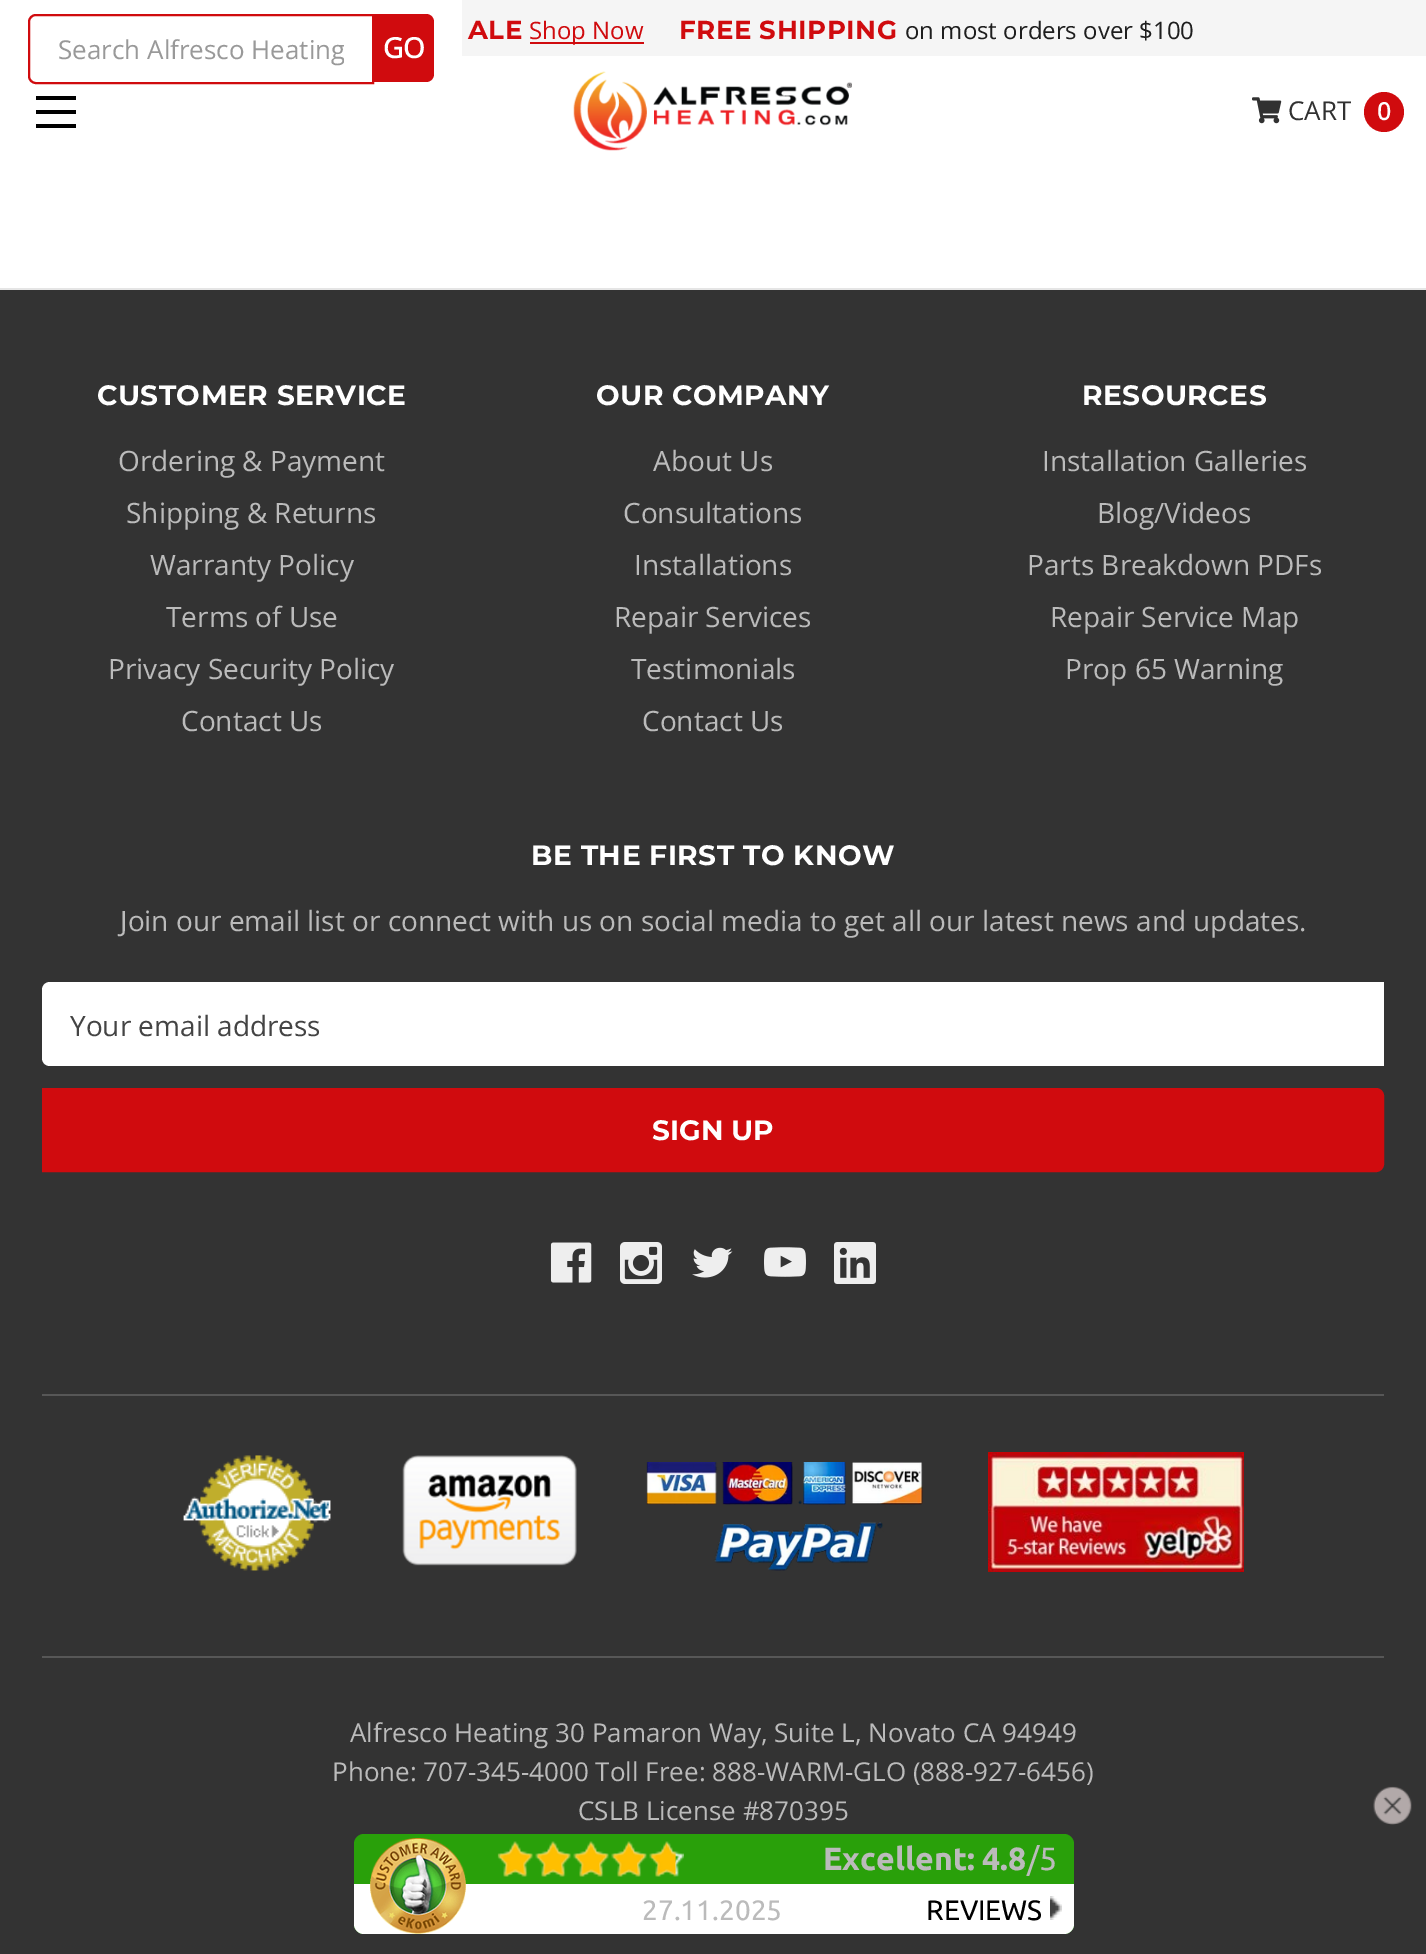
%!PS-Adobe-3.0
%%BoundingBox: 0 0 1426 1954
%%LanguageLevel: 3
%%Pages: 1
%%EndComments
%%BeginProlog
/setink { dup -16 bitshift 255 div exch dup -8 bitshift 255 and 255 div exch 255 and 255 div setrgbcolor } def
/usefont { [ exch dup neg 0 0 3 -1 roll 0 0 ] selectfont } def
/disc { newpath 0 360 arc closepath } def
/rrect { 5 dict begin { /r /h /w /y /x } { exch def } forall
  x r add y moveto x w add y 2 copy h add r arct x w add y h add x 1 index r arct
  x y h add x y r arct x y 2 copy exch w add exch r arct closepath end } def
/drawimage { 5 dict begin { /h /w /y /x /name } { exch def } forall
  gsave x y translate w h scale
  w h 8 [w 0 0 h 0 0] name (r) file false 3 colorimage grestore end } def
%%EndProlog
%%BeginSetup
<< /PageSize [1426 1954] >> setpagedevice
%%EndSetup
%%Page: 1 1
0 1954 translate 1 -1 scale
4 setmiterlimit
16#FFFFFF setink
0 0 1426 1954 rectfill
16#D00B0E setink
2 setlinewidth
36 15 moveto 373 15 lineto 373 83 lineto 36 83 lineto 32 83 29 80 29 76 curveto 29 22 lineto 29 18 32 15 36 15 curveto closepath stroke
gsave
58 30 286 36 rectclip
/OpenSans-Regular 26 usefont
16#999999 setink
58 59 moveto (Search Alfresco Heating) show
grestore
374 14 moveto 426 14 lineto 430.5 14 434 17.5 434 22 curveto 434 74 lineto 434 78.5 430.5 82 426 82 curveto 374 82 lineto closepath fill
/OpenSans-Bold 28 usefont
16#FFFFFF setink
383 58 moveto (GO) show
16#F5F5F5 setink
462 0 964 56 rectfill
/Montserrat-Bold 26 usefont
16#D00B0E setink
468 39 moveto 0.5 0 (ALE) ashow
530 42 114 2 rectfill
/OpenSans-Regular 24 usefont
529 39 moveto (Shop Now) show
/Montserrat-Bold 26 usefont
679 39 moveto 0.5 0 (FREE SHIPPING) ashow
/OpenSans-Regular 24 usefont
16#1E1E1E setink
905 39 moveto (on most orders over $100) show
(img1.raw) 573 71 279 80 drawimage
(img2.raw) 1252 97 30 27 drawimage
/OpenSans-Regular 26 usefont
16#313131 setink
1288 120 moveto (CART) show
16#D00B0E setink
1384 112 20 disc fill
/OpenSans-Bold 24 usefont
16#FFFFFF setink
1377 120 moveto (0) show
[
    [36 110 40 4 16#000000]
    [36 96 40 4 16#000000]
    [36 124 40 4 16#000000]
    [0 290 1426 1664 16#333333]
    [0 288 1426 2 16#E5E5E5]
] { aload pop setink rectfill } forall
/Montserrat-Bold 28 usefont
16#FFFFFF setink
97 405 moveto 0.5 0 (CUSTOMER SERVICE) ashow
/OpenSans-Regular 28 usefont
16#BBBBBB setink
[
    [(Ordering & Payment) 118 471]
    [(Shipping & Returns) 126 523]
    [(Warranty Policy) 150 575]
    [(Terms of Use) 166 627]
    [(Privacy Security Policy) 108 679]
    [(Contact Us) 181 731]
] { aload pop moveto show } forall
/Montserrat-Bold 28 usefont
16#FFFFFF setink
596 405 moveto 0.5 0 (OUR COMPANY) ashow
/OpenSans-Regular 28 usefont
16#BBBBBB setink
[
    [(About Us) 653 471]
    [(Consultations) 623 523]
    [(Installations) 634 575]
    [(Repair Services) 614 627]
    [(Testimonials) 631 679]
    [(Contact Us) 642 731]
] { aload pop moveto show } forall
/Montserrat-Bold 28 usefont
16#FFFFFF setink
1082 405 moveto 0.5 0 (RESOURCES) ashow
/OpenSans-Regular 28 usefont
16#BBBBBB setink
[
    [(Installation Galleries) 1042 471]
    [(Blog/Videos) 1097 523]
    [(Parts Breakdown PDFs) 1027 575]
    [(Repair Service Map) 1050 627]
    [(Prop 65 Warning) 1065 679]
] { aload pop moveto show } forall
/Montserrat-Bold 28 usefont
16#FFFFFF setink
531 865 moveto 0.5 0 (BE THE FIRST TO KNOW) ashow
/OpenSans-Regular 28 usefont
16#BBBBBB setink
120 931 moveto (Join our email list or connect with us on social media to get all our latest news and updates.) show
16#FFFFFF setink
50 982 moveto 1384 982 lineto 1384 1066 lineto 50 1066 lineto 45.5 1066 42 1062.5 42 1058 curveto 42 990 lineto 42 985.5 45.5 982 50 982 curveto closepath fill
16#444444 setink
70 1036 moveto (Your email address) show
16#D00B0E setink
43 1089 moveto 1376 1089 lineto 1380 1089 1383 1092 1383 1096 curveto 1383 1164 lineto 1383 1168 1380 1171 1376 1171 curveto 43 1171 lineto closepath gsave fill grestore
stroke
/Montserrat-Bold 28 usefont
16#FFFFFF setink
652 1140 moveto (SIGN UP) show
(img3.raw) 550 1242 42 41 drawimage
(img4.raw) 620 1242 42 42 drawimage
(img5.raw) 692 1247 41 31 drawimage
(img6.raw) 764 1247 42 30 drawimage
(img7.raw) 834 1242 42 42 drawimage
/OpenSans-Regular 26 usefont
16#BBBBBB setink
[
    [(Alfresco Heating 30 Pamaron Way, Suite L, Novato CA 94949) 350 1742]
    [(Phone: 707-345-4000 Toll Free: 888-WARM-GLO \(888-927-6456\)) 332 1781]
    [(CSLB License #870395) 578 1820]
] { aload pop moveto show } forall
16#575757 setink
42 1394 1342 2 rectfill
42 1656 1342 2 rectfill
(img8.raw) 183 1455 148 116 drawimage
(img9.raw) 402 1455 175 111 drawimage
(img10.raw) 646 1462 277 109 drawimage
(img11.raw) 988 1452 256 120 drawimage
(img12.raw) 1373 1786 39 39 drawimage
16#29A00A setink
354 1834 720 100 10 rrect fill
16#FFFFFF setink
354 1884 moveto 1074 1884 lineto 1074 1924 lineto 1074 1929.5 1069.5 1934 1064 1934 curveto 364 1934 lineto 358.5 1934 354 1929.5 354 1924 curveto closepath fill
(img13.raw) 370 1838 96 96 drawimage
(img14.raw) 498 1841 186 36 drawimage
(img15.raw) 497 1841 179 36 drawimage
/Ubuntu-Bold 32 usefont
16#BBBBBB setink
823 1870 moveto (Excellent: 4.8) show
/Ubuntu-Regular 32 usefont
1027 1870 moveto (/5) show
/Ubuntu-Regular 28 usefont
642 1920 moveto (27.11.2025) show
16#000000 setink
926 1920 moveto (REVIEWS) show
(img16.raw) 1050 1896 12 24 drawimage
showpage
%%EOF
